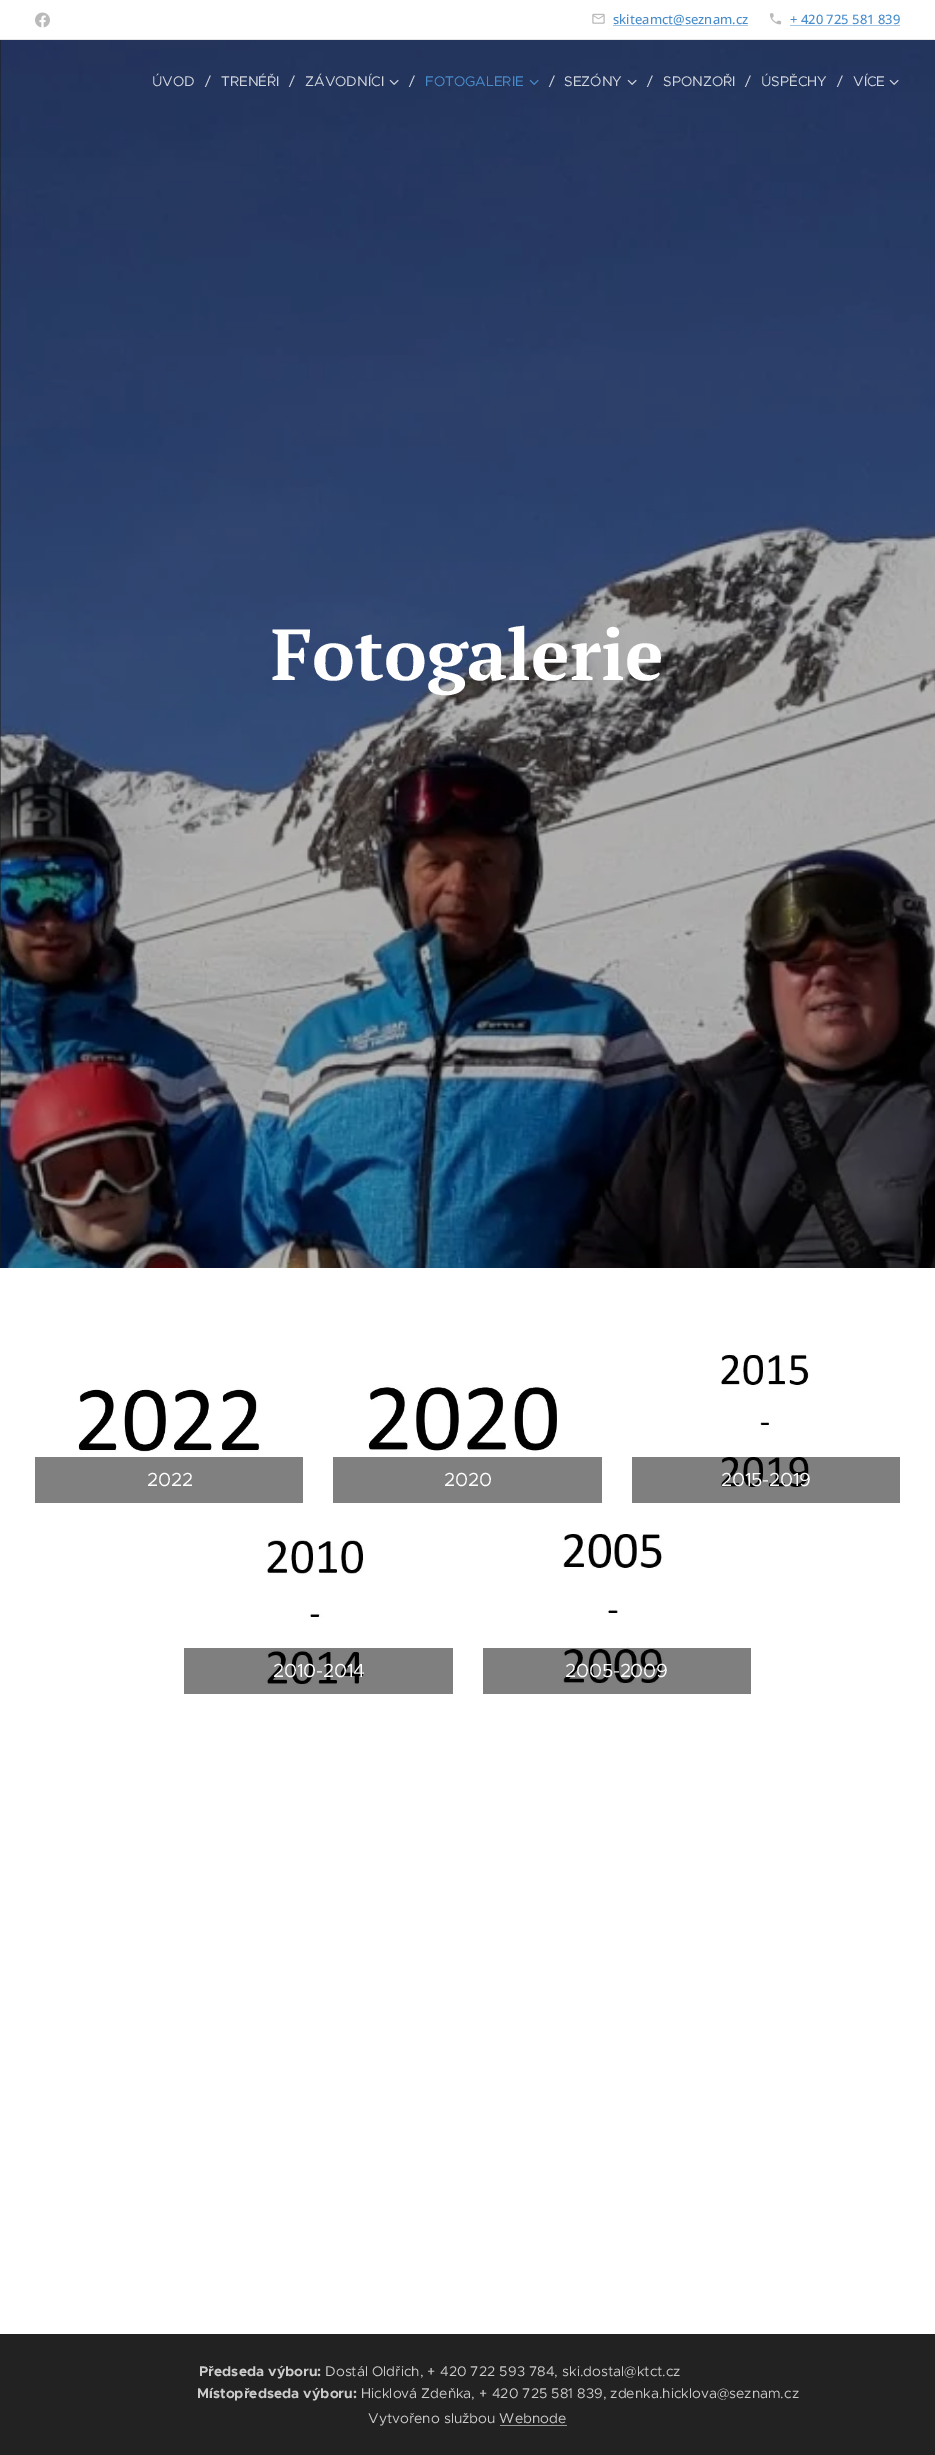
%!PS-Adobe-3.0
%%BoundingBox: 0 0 935 2455
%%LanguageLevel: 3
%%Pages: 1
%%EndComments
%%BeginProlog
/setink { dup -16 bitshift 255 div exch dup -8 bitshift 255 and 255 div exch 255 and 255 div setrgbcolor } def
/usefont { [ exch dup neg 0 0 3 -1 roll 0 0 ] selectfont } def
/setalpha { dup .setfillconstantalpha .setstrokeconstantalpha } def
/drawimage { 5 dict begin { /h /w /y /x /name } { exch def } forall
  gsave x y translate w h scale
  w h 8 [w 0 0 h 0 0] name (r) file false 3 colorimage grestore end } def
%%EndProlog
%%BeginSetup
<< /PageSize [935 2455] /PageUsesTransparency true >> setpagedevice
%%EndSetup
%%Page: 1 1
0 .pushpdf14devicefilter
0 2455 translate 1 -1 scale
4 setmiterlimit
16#FFFFFF setink
0 0 935 2455 rectfill
(img1.raw) 35 12 15 16 drawimage
(img2.raw) 592 13 13 11 drawimage
16#A4C6E5 setink
613 25 135 1 rectfill
/OpenSans-Medium 13 usefont
16#488CCB setink
613 24 moveto (skiteamct@seznam.cz) show
(img3.raw) 769 13 13 12 drawimage
790 24 moveto (+ 420 725 581 839) show
[
    [790 25 110 1 16#A4C6E5]
    [0 39 935 1 16#E8E8E8]
    [0 40 1 1228 16#1B1B1B]
] { aload pop setink rectfill } forall
(img8.raw) 0 40 935 1228 drawimage
/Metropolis-Regular 14 usefont
16#D3D7DF setink
[
    [(ÚVOD) 152 86]
    [(/) 205 86]
    [(TRENÉŘI) 221 86]
    [(/) 289 86]
    [(ZÁVODNÍCI) 305 86]
    [(/) 409 86]
] { aload pop moveto show } forall
(img4.raw) 389 79 10 6 drawimage
16#488CCB setink
425 86 moveto (FOTOGALERIE) show
16#D3D7DF setink
549 86 moveto (/) show
(img5.raw) 529 79 10 6 drawimage
564 86 moveto (SEZÓNY) show
647 86 moveto (/) show
(img6.raw) 627 79 10 6 drawimage
[
    [(SPONZOŘI) 663 86]
    [(/) 745 86]
    [(ÚSPĚCHY) 761 86]
    [(/) 837 86]
    [(VÍCE) 853 86]
] { aload pop moveto show } forall
(img7.raw) 889 79 10 6 drawimage
/PTSerif-Bold 72 usefont
16#FFFFFF setink
271 680 moveto (Fotogalerie) show
(img9.raw) 78 1388 182 64 drawimage
16#808080 setink
35 1457 268 46 rectfill
/Metropolis-Regular 19 usefont
16#FFFFFF setink
147 1486 moveto -0.25 0 (2022) ashow
(img10.raw) 368 1385 189 66 drawimage
16#808080 setink
333 1457 269 46 rectfill
16#FFFFFF setink
444 1486 moveto -0.25 0 (2020) ashow
(img11.raw) 720 1354 90 133 drawimage
0.5 setalpha
16#000000 setink
632 1457 268 46 rectfill
1 setalpha
16#FFFFFF setink
721 1486 moveto -0.25 0 (2015-2019) ashow
(img12.raw) 266 1539 98 147 drawimage
0.5 setalpha
16#000000 setink
184 1648 269 46 rectfill
1 setalpha
16#FFFFFF setink
273 1677 moveto -0.25 0 (2010-2014) ashow
(img13.raw) 562 1534 102 150 drawimage
0.5 setalpha
16#000000 setink
483 1648 268 46 rectfill
1 setalpha
16#FFFFFF setink
565 1677 moveto -0.25 0 (2005-2009) ashow
16#222222 setink
0 2334 935 121 rectfill
/Metropolis-Bold 14 usefont
16#CCCCCC setink
199 2376 moveto (Předseda výboru:) show
/Metropolis-Regular 14 usefont
325 2376 moveto (Dostál Oldřich, + 420 722 593 784, ski.dostal@ktct.cz) show
/Metropolis-Bold 14 usefont
197 2398 moveto (Místopředseda výboru:) show
/Metropolis-Regular 14 usefont
361 2398 moveto (Hicklová Zdeňka, + 420 725 581 839, zdenka.hicklova@seznam.cz) show
368 2423 moveto (Vytvořeno službou Webnode) show
16#999999 setink
500 2425 67 1 rectfill
.poppdf14devicefilter showpage
%%EOF
